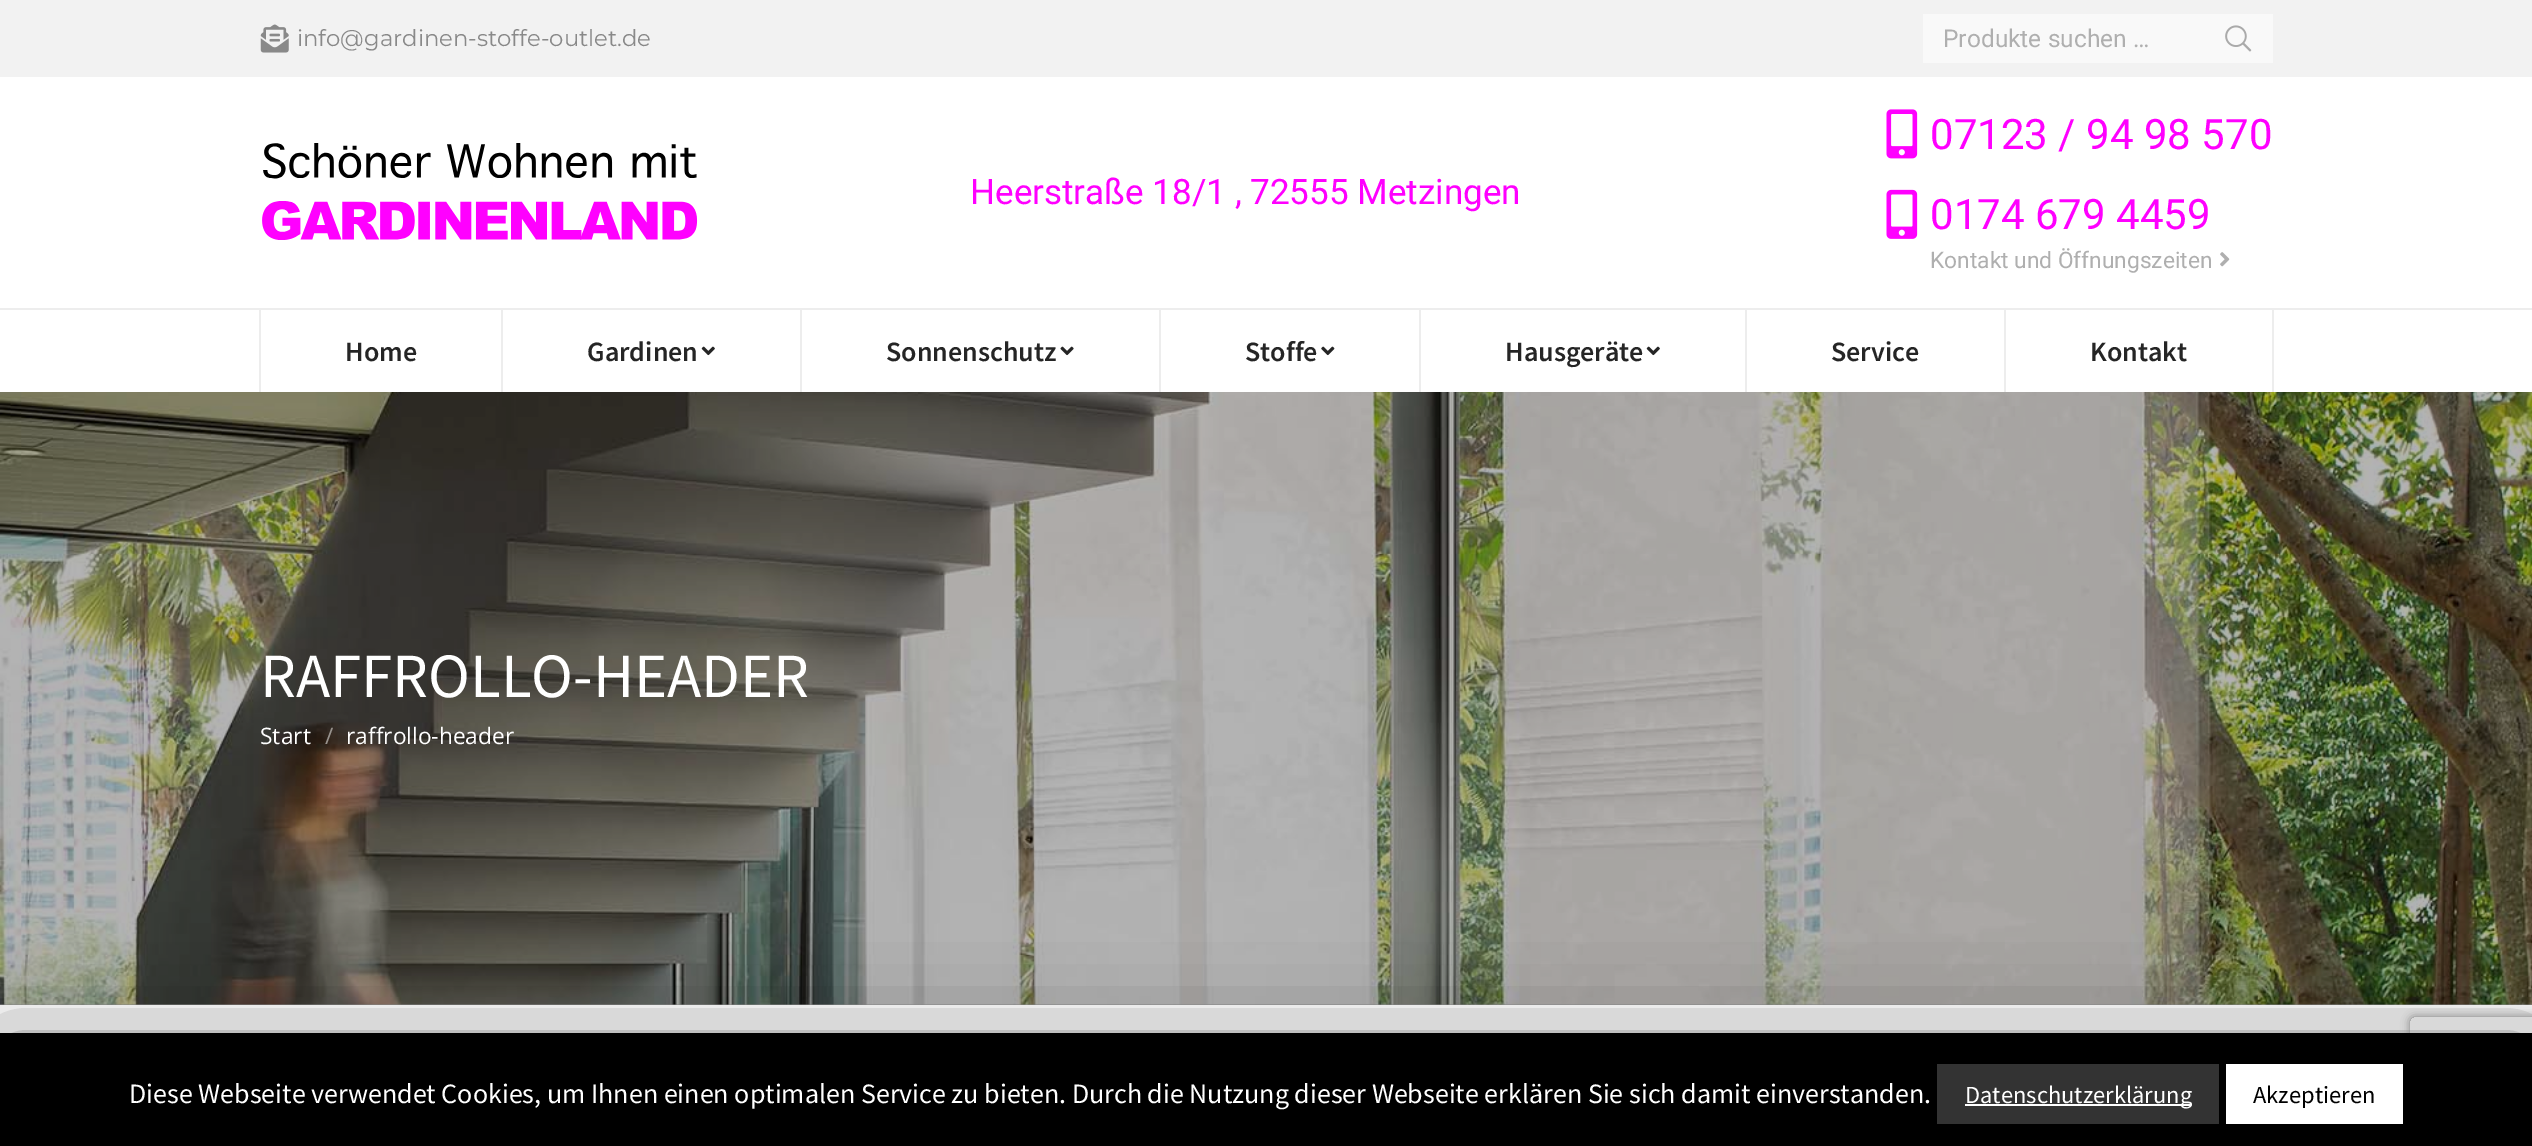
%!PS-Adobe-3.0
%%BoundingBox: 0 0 2532 1146
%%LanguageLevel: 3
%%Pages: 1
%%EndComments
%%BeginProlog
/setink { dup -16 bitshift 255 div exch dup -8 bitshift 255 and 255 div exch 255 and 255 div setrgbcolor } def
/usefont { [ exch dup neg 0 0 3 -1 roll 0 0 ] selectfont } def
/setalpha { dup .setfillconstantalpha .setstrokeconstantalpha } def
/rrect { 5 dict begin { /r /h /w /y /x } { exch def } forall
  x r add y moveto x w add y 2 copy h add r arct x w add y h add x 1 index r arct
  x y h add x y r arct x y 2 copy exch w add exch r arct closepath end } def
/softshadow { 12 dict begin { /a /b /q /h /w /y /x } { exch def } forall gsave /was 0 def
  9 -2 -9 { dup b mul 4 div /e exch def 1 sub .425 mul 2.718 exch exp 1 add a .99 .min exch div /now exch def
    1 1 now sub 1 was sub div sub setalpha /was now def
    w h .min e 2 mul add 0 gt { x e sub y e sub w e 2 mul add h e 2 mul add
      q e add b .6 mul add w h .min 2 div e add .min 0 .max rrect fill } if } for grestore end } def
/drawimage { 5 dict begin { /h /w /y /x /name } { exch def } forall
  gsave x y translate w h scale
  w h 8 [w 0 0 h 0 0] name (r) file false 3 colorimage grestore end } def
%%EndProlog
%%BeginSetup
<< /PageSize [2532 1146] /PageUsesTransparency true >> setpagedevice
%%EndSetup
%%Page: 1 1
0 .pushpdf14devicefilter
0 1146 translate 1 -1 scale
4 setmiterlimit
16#FFFFFF setink
0 0 2532 1146 rectfill
16#F2F2F2 setink
0 0 2532 77 rectfill
(img1.raw) 260 24 29 29 drawimage
/Montserrat-Regular 22.75 usefont
16#898989 setink
297 46 moveto (info@gardinen-stoffe-outlet.de) show
16#F9F9F9 setink
1923 14 350 49 rectfill
/Roboto-Regular 24.5 usefont
16#AFAFAF setink
1943 47 moveto (Produkte suchen …) show
(img2.raw) 2225 25 27 27 drawimage
(img3.raw) 262 143 436 97 drawimage
/Roboto-Regular 35 usefont
16#FF00FF setink
970 204 moveto (Heerstraße 18/1 , 72555 Metzingen) show
(img4.raw) 1886 109 32 50 drawimage
/Roboto-Regular 42 usefont
1930 149 moveto (07123 / 94 98 570) show
(img5.raw) 1886 189 32 50 drawimage
1930 229 moveto (0174 679 4459) show
/Roboto-Regular 22.75 usefont
16#AFAFAF setink
1930 268 moveto (Kontakt und Öffnungszeiten) show
(img6.raw) 2220 252 10 15 drawimage
16#EDEDED setink
0 308 2532 2 rectfill
259 308 2 84 rectfill
/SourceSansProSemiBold-SemiBold 28 usefont
16#252525 setink
345 361 moveto (Home) show
16#EDEDED setink
501 308 2 84 rectfill
16#252525 setink
587 361 moveto (Gardinen) show
(img7.raw) 701 346 14 10 drawimage
16#EDEDED setink
800 308 2 84 rectfill
16#252525 setink
886 361 moveto (Sonnenschutz) show
(img8.raw) 1060 346 14 10 drawimage
16#EDEDED setink
1159 308 2 84 rectfill
16#252525 setink
1245 361 moveto (Stoffe) show
(img9.raw) 1321 346 14 10 drawimage
16#EDEDED setink
1419 308 2 84 rectfill
16#252525 setink
1505 361 moveto (Hausgeräte) show
(img7.raw) 1646 346 14 10 drawimage
16#EDEDED setink
1745 308 2 84 rectfill
16#252525 setink
1831 361 moveto (Service) show
16#EDEDED setink
2004 308 2 84 rectfill
16#252525 setink
2090 361 moveto (Kontakt) show
16#EDEDED setink
2272 308 2 84 rectfill
16#8F8F8F setink
0 1004 2532 1 rectfill
(img10.raw) 0 392 2532 613 drawimage
/SourceSansPro-Regular 63 usefont
16#FFFFFF setink
260 697 moveto (RAFFROLLO-HEADER) show
/OpenSans-Regular 22.75 usefont
260 744 moveto (Start) show
16#98938E setink
325 744 moveto (/) show
16#FFFFFF setink
346 744 moveto (raffrollo-header) show
16#000000 setink
0 1041 2532 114 0 44 0.5 softshadow
gsave
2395 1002 moveto 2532 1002 lineto 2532 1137 lineto 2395 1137 lineto closepath 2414 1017 moveto 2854 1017 lineto 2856 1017 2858 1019 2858 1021 curveto 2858 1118 lineto 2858 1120 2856 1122 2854 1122 curveto 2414 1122 lineto 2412 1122 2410 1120 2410 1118 curveto 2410 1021 lineto 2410 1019 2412 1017 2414 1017 curveto closepath eoclip newpath
16#808080 setink
2410 1017 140 105 4 4.5 1 softshadow
grestore
0 1033 2532 113 rectfill
/SourceSansPro-Regular 28 usefont
16#FFFFFF setink
129 1103 moveto (Diese Webseite verwendet Cookies, um Ihnen einen optimalen Service zu bieten. Durch die Nutzung dieser Webseite erklären Sie sich damit einverstanden.) show
16#333333 setink
1937 1064 282 60 rectfill
16#FFFFFF setink
1965 1104 226 2 rectfill
/SourceSansPro-Regular 24.5 usefont
1965 1103 moveto (Datenschutzerklärung) show
2226 1064 177 60 rectfill
16#000000 setink
2253 1103 moveto (Akzeptieren) show
.poppdf14devicefilter showpage
%%EOF
